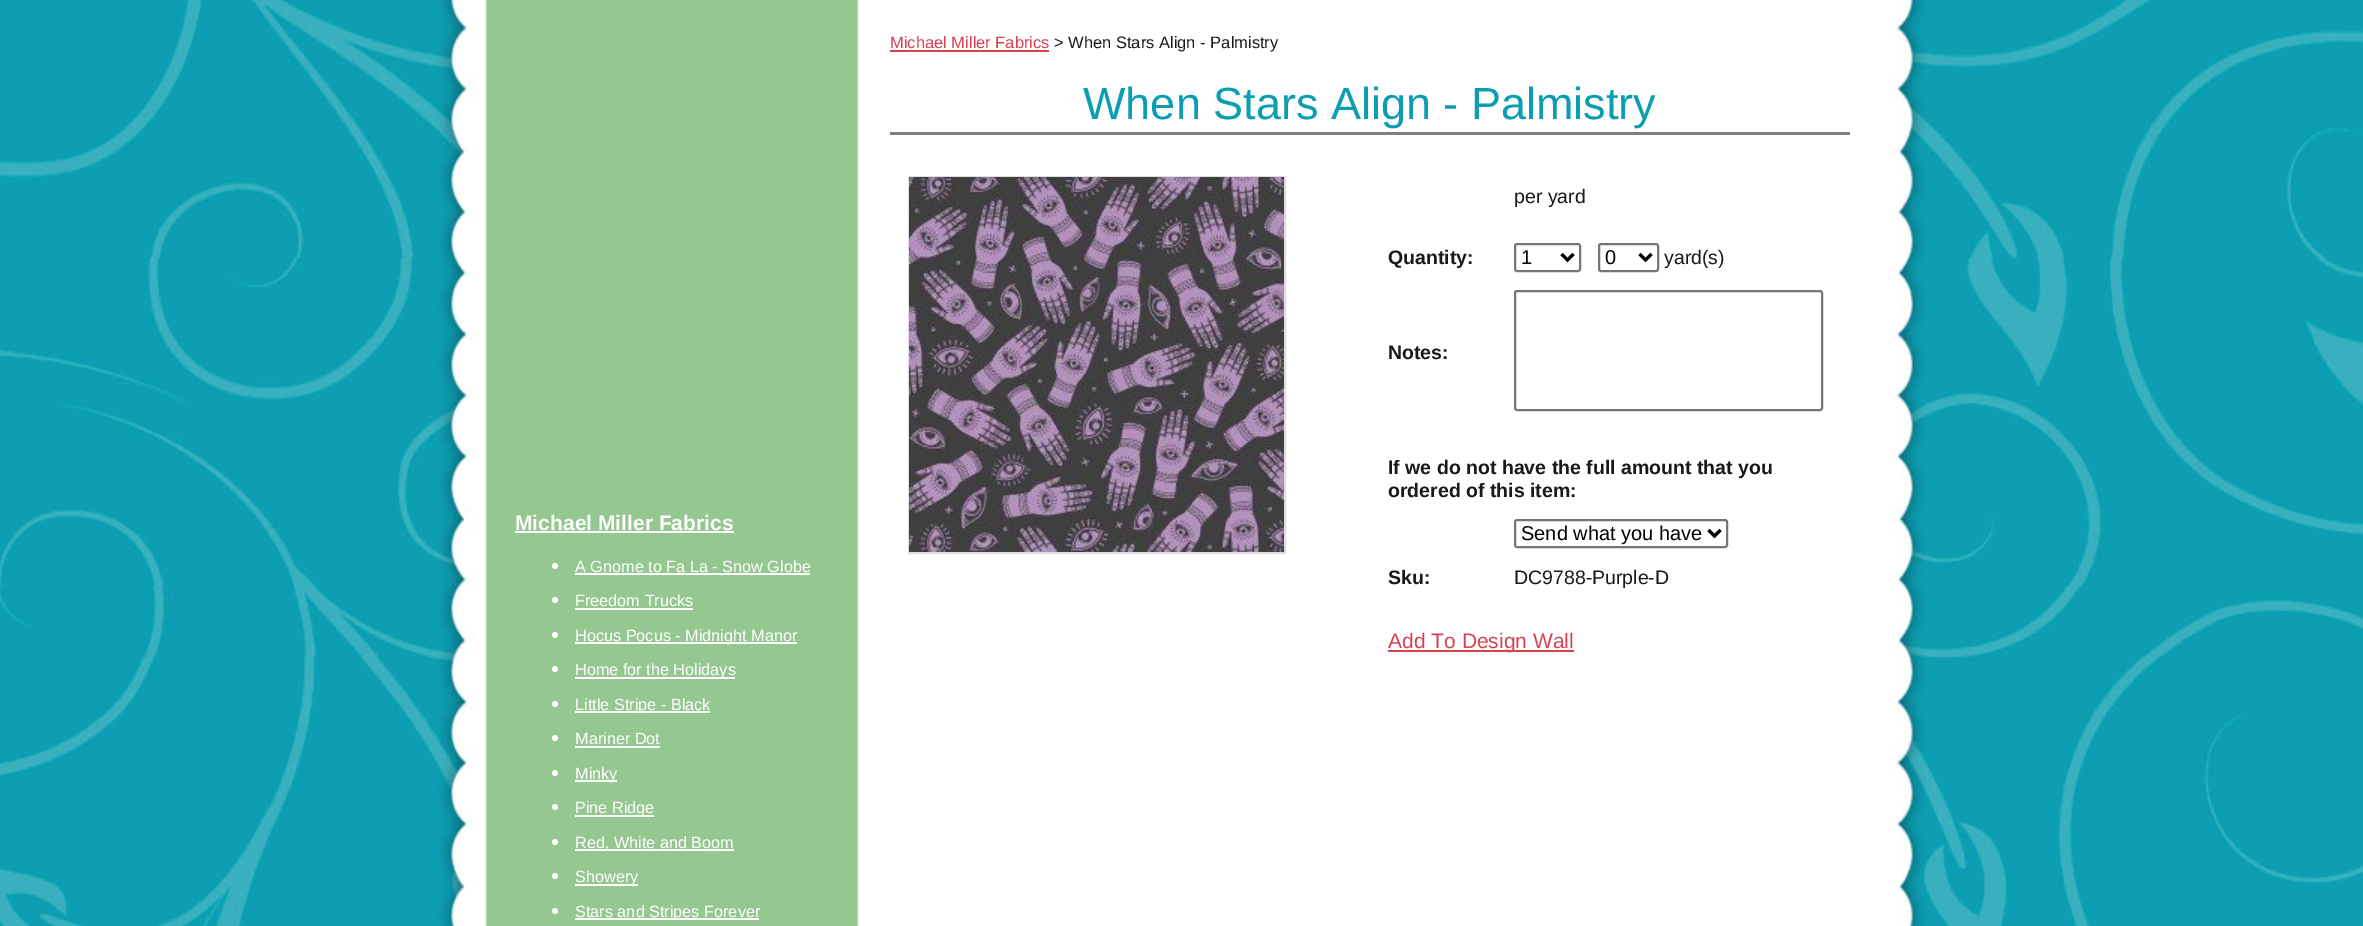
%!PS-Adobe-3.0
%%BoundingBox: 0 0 2363 926
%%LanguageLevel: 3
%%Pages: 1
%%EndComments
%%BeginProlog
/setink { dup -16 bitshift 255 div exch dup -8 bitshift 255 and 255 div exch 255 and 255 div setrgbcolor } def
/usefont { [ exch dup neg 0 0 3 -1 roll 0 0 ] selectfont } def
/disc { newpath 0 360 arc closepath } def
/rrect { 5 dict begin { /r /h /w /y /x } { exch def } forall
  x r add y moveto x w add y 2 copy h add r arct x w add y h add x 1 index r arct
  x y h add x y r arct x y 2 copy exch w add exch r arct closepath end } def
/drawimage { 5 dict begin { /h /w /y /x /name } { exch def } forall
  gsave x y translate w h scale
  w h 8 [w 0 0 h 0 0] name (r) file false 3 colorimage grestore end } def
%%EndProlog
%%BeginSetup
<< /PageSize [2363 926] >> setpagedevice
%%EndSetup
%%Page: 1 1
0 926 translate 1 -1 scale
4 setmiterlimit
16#FFFFFF setink
0 0 2363 926 rectfill
(img1.raw) 0 0 2363 926 drawimage
/LiberationSans-Regular 16.5 usefont
16#D54254 setink
890 48 moveto (Michael Miller Fabrics) show
890 50 159 2 rectfill
16#191919 setink
1054 48 moveto (> When Stars Align - Palmistry) show
/LiberationSans-Regular 45 usefont
16#0B9EB2 setink
1083 119 moveto (When Stars Align - Palmistry) show
16#7F7F7F setink
890 132 960 3 rectfill
16#DFDFDF setink
2 setlinewidth
909 177 376 376 rectstroke
(img2.raw) 909 177 375 375 drawimage
/LiberationSans-Regular 19.5 usefont
16#191919 setink
1514 203 moveto (per yard) show
/LiberationSans-Bold 19.5 usefont
1388 264 moveto (Quantity:) show
16#767676 setink
1515 244 65 27 2 rrect stroke
16#000000 setink
3 setlinewidth
1561.5 254 moveto 1567.5 260 lineto 1573.5 254 lineto stroke
/LiberationSans-Regular 20 usefont
1521 264 moveto (1) show
16#767676 setink
2 setlinewidth
1599 244 59 27 2 rrect stroke
16#000000 setink
3 setlinewidth
1639.5 254 moveto 1645.5 260 lineto 1651.5 254 lineto stroke
1605 264 moveto (0) show
/LiberationSans-Regular 19.5 usefont
16#191919 setink
1664 264 moveto (yard\(s\)) show
/LiberationSans-Bold 19.5 usefont
1388 359 moveto (Notes:) show
16#767676 setink
2 setlinewidth
1515 291 307 119 2 rrect stroke
16#191919 setink
1388 474 moveto (If we do not have the full amount that you) show
1388 497 moveto (ordered of this item:) show
16#767676 setink
1515 520 212 27 2 rrect stroke
16#000000 setink
3 setlinewidth
1708.5 530 moveto 1714.5 536 lineto 1720.5 530 lineto stroke
/LiberationSans-Regular 20 usefont
1521 540 moveto (Send what you have) show
/LiberationSans-Bold 19.5 usefont
16#191919 setink
1388 584 moveto (Sku:) show
/LiberationSans-Regular 19.5 usefont
1514 584 moveto (DC9788-Purple-D) show
16#D54254 setink
1388 650 186 2 rectfill
/LiberationSans-Regular 21 usefont
1388 648 moveto (Add To Design Wall) show
(img3.raw) 485 0 374 926 drawimage
/LiberationSans-Bold 21 usefont
16#FFFFFF setink
515 530 moveto (Michael Miller Fabrics) show
515 531 219 2 rectfill
555 566 3 disc fill
/LiberationSans-Regular 16.25 usefont
575 572 moveto (A Gnome to Fa La - Snow Globe) show
575 573 235 2 rectfill
555 600 3 disc fill
575 606 moveto (Freedom Trucks) show
575 608 118 2 rectfill
555 635 3 disc fill
575 642 222 2 rectfill
575 641 moveto (Hocus Pocus - Midnight Manor) show
555 669 3 disc fill
575 677 160 2 rectfill
575 675 moveto (Home for the Holidays) show
555 704 3 disc fill
575 711 135 2 rectfill
575 710 moveto (Little Stripe - Black) show
555 738 3 disc fill
575 744 moveto (Mariner Dot) show
575 746 85 2 rectfill
555 773 3 disc fill
575 780 42 2 rectfill
575 779 moveto (Minky) show
555 807 3 disc fill
575 815 79 2 rectfill
575 813 moveto (Pine Ridge) show
555 842 3 disc fill
575 849 159 2 rectfill
575 848 moveto (Red, White and Boom) show
555 876 3 disc fill
575 884 63 2 rectfill
575 882 moveto (Showery) show
555 911 3 disc fill
575 918 184 2 rectfill
575 917 moveto (Stars and Stripes Forever) show
showpage
%%EOF
